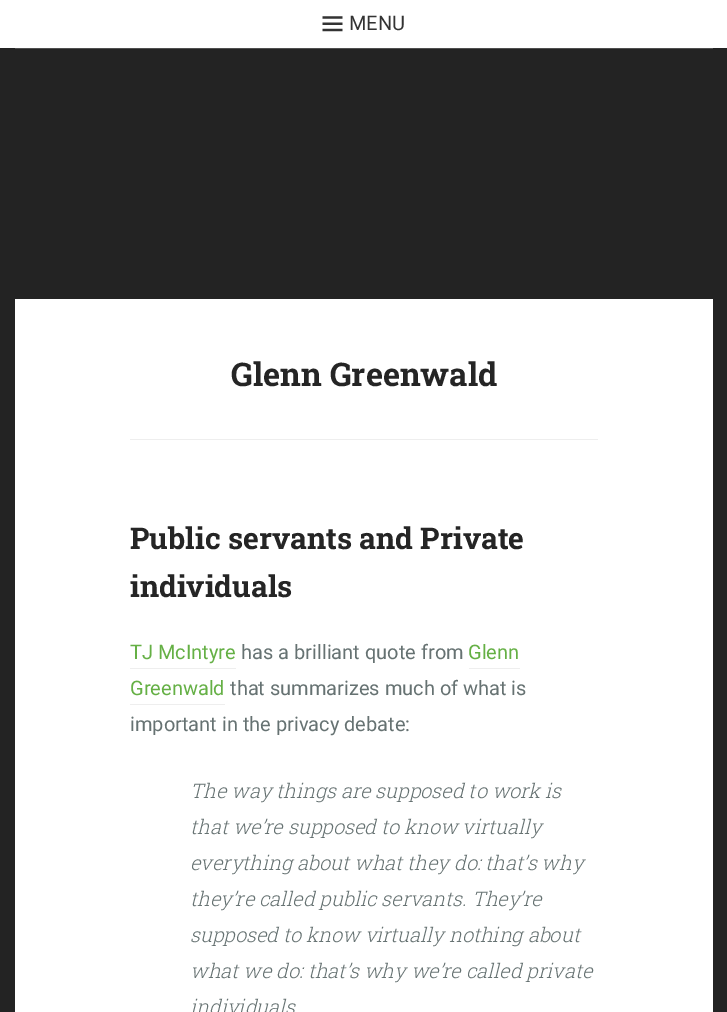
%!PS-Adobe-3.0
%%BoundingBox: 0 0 727 1012
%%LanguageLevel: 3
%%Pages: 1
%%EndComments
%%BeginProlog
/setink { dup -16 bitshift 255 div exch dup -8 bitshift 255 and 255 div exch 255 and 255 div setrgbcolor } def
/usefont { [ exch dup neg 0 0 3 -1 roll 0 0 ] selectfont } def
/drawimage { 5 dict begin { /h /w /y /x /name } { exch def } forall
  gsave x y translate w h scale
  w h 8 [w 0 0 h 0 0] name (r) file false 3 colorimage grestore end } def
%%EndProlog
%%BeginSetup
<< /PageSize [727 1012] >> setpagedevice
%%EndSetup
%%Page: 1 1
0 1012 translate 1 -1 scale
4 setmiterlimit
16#232323 setink
0 0 727 1012 rectfill
16#FFFFFF setink
0 0 727 48 rectfill
(img1.raw) 322 16 21 16 drawimage
/Roboto-Regular 20 usefont
16#333333 setink
349 30 moveto (MENU) show
[
    [15 48 698 1 16#4F4F4F]
    [15 299 698 713 16#FFFFFF]
    [130 439 468 1 16#EEEEEE]
] { aload pop setink rectfill } forall
/RobotoSlab-Bold 32.5 usefont
16#252525 setink
231 386 moveto (Glenn Greenwald) show
/RobotoSlab-Bold 30 usefont
130 549 moveto (Public servants and Private) show
130 597 moveto (individuals) show
/Roboto-Regular 20 usefont
16#65B045 setink
130 659 moveto (TJ McIntyre) show
16#EEEEEE setink
130 668 106 1 rectfill
16#667272 setink
241 659 moveto (has a brilliant quote from) show
16#65B045 setink
468 659 moveto (Glenn) show
16#EEEEEE setink
469 668 51 1 rectfill
16#65B045 setink
130 695 moveto (Greenwald) show
16#EEEEEE setink
130 704 95 1 rectfill
16#667272 setink
230 695 moveto (that summarizes much of what is) show
130 731 moveto (important in the privacy debate:) show
/RobotoSlab-LightItalic 20 usefont
[
    [(The way things are supposed to work is) 190 798]
    [(that we’re supposed to know virtually) 190 834]
    [(everything about what they do: that’s why) 190 870]
    [(they’re called public servants. They’re) 190 906]
    [(supposed to know virtually nothing about) 190 942]
    [(what we do: that’s why we’re called private) 190 978]
    [(individuals.) 190 1014]
] { aload pop moveto show } forall
showpage
%%EOF
